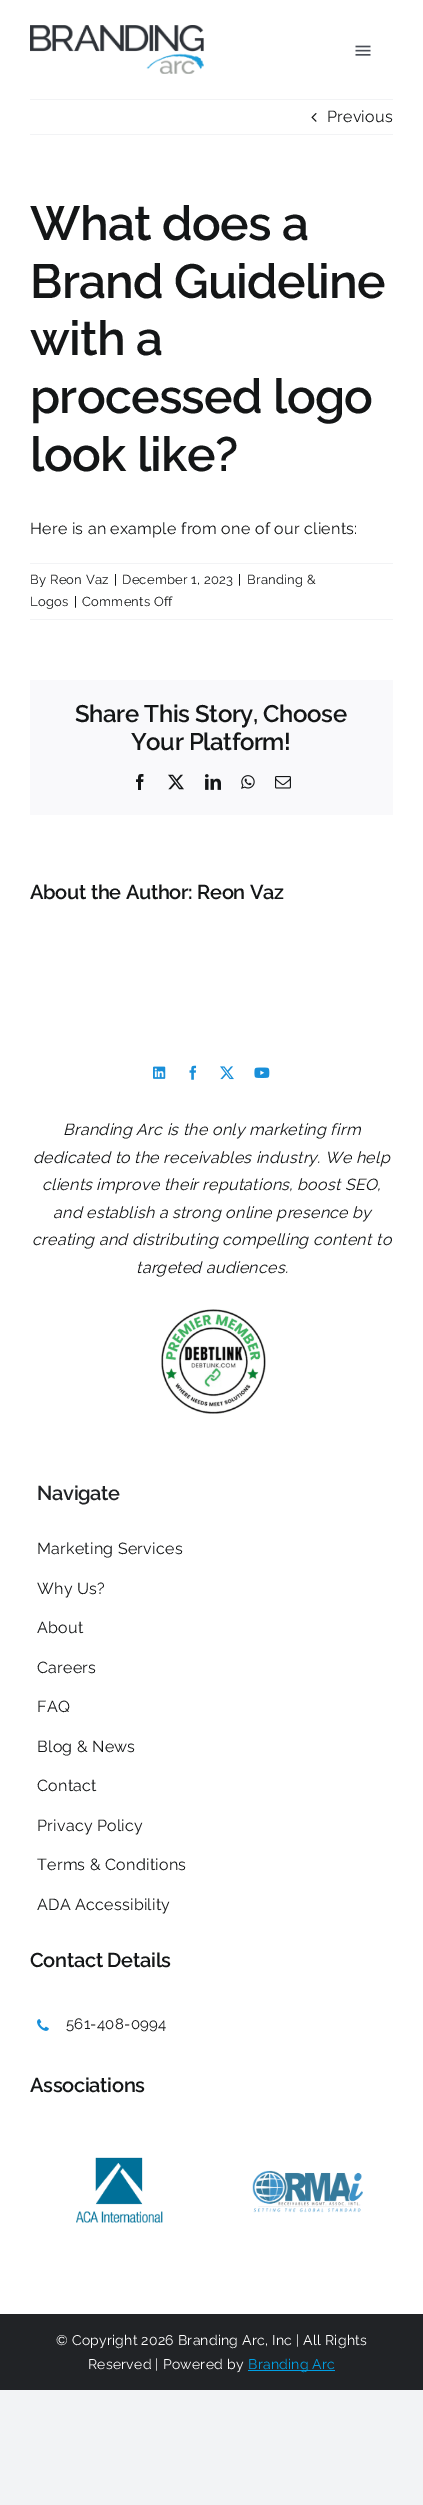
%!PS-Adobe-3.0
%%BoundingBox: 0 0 423 2505
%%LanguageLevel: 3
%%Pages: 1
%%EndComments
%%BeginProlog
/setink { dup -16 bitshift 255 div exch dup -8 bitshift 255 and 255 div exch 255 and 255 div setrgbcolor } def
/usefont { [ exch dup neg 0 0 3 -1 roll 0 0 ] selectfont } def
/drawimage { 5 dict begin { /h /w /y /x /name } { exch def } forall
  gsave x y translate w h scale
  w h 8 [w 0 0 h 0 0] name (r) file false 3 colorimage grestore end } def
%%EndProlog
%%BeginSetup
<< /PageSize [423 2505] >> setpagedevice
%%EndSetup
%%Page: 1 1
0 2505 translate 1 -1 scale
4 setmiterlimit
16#F2F3F5 setink
0 0 423 2505 rectfill
16#FFFFFF setink
0 0 423 2314 rectfill
(img1.raw) 30 25 174 49 drawimage
(img2.raw) 355 45 16 11 drawimage
16#F2F3F5 setink
30 99 363 1 rectfill
30 134 363 1 rectfill
(img3.raw) 311 113 6 9 drawimage
/Raleway-Regular 16 usefont
16#141617 setink
327 122 moveto 0.25 0 (Previous) ashow
/Raleway-SemiBold 48 usefont
30 240 moveto -0.75 0 (What does a) ashow
30 298 moveto -0.75 0 (Brand Guideline) ashow
30 355 moveto -0.75 0 (with a) ashow
30 413 moveto -0.75 0 (processed logo) ashow
30 471 moveto -0.75 0 (look like?) ashow
/Raleway-Regular 16 usefont
30 534 moveto 0.25 0 (Here is an example from one of our clients:) ashow
16#F2F3F5 setink
30 563 363 1 rectfill
30 619 363 1 rectfill
/Raleway-Regular 13 usefont
16#141617 setink
30 584 moveto 0.25 0 (By Reon Vaz) ashow
114 584 moveto 0.25 0 (|) ashow
122 584 moveto 0.25 0 (December 1, 2023) ashow
238 584 moveto 0.25 0 (|) ashow
247 584 moveto 0.25 0 (Branding &) ashow
30 606 moveto 0.25 0 (Logos) ashow
74 606 moveto 0.25 0 (|) ashow
82 606 moveto 0.25 0 (Comments Off) ashow
16#F9F9FB setink
30 680 363 135 rectfill
/Raleway-SemiBold 24 usefont
16#141617 setink
75 722 moveto -0.4 0 (Share This Story, Choose) ashow
131 750 moveto -0.4 0 (Your Platform!) ashow
(img4.raw) 136 774 8 16 drawimage
(img5.raw) 168 774 16 16 drawimage
(img6.raw) 205 774 16 16 drawimage
(img7.raw) 241 775 14 14 drawimage
(img8.raw) 275 776 16 13 drawimage
/Raleway-SemiBold 20 usefont
30 899 moveto -0.3 0 (About the Author: Reon Vaz) ashow
(img9.raw) 153 1066 13 13 drawimage
(img10.raw) 189 1065 8 15 drawimage
(img11.raw) 220 1066 14 14 drawimage
(img12.raw) 254 1067 16 11 drawimage
/Raleway-Italic 16 usefont
63 1135 moveto 0.25 0 (Branding Arc is the only marketing firm) ashow
33 1163 moveto 0.25 0 (dedicated to the receivables industry. We help) ashow
42 1190 moveto 0.25 0 (clients improve their reputations, boost SEO,) ashow
53 1218 moveto 0.25 0 (and establish a strong online presence by) ashow
32 1245 moveto 0.25 0 (creating and distributing compelling content to) ashow
136 1273 moveto 0.25 0 (targeted audiences.) ashow
(img13.raw) 161 1309 105 105 drawimage
/Raleway-SemiBold 20 usefont
16#212326 setink
37 1500 moveto -0.3 0 (Navigate) ashow
/Raleway-Regular 16 usefont
16#141617 setink
37 1554 moveto 0.25 0 (Marketing Services) ashow
37 1594 moveto 0.25 0 (Why Us?) ashow
37 1633 moveto 0.25 0 (About) ashow
37 1673 moveto 0.25 0 (Careers) ashow
37 1712 moveto 0.25 0 (FAQ) ashow
37 1752 moveto 0.25 0 (Blog & News) ashow
37 1791 moveto 0.25 0 (Contact) ashow
37 1831 moveto 0.25 0 (Privacy Policy) ashow
37 1870 moveto 0.25 0 (Terms & Conditions) ashow
37 1910 moveto 0.25 0 (ADA Accessibility) ashow
/Raleway-SemiBold 20 usefont
30 1967 moveto -0.3 0 (Contact Details) ashow
(img14.raw) 37 2019 12 12 drawimage
/Raleway-Regular 15 usefont
66 2029 moveto 0.25 0 (561-408-0994) ashow
/Raleway-SemiBold 20 usefont
30 2092 moveto -0.3 0 (Associations) ashow
(img15.raw) 76 2157 87 66 drawimage
(img16.raw) 252 2170 111 43 drawimage
16#212326 setink
0 2314 423 76 rectfill
/Raleway-Regular 14 usefont
16#FFFFFF setink
56 2345 moveto 0.25 0 (© Copyright 2026 Branding Arc, Inc | All Rights) ashow
88 2369 moveto 0.25 0 (Reserved | Powered by) ashow
16#009FE3 setink
248 2370 87 1 rectfill
248 2369 moveto 0.25 0 (Branding Arc) ashow
showpage
%%EOF
